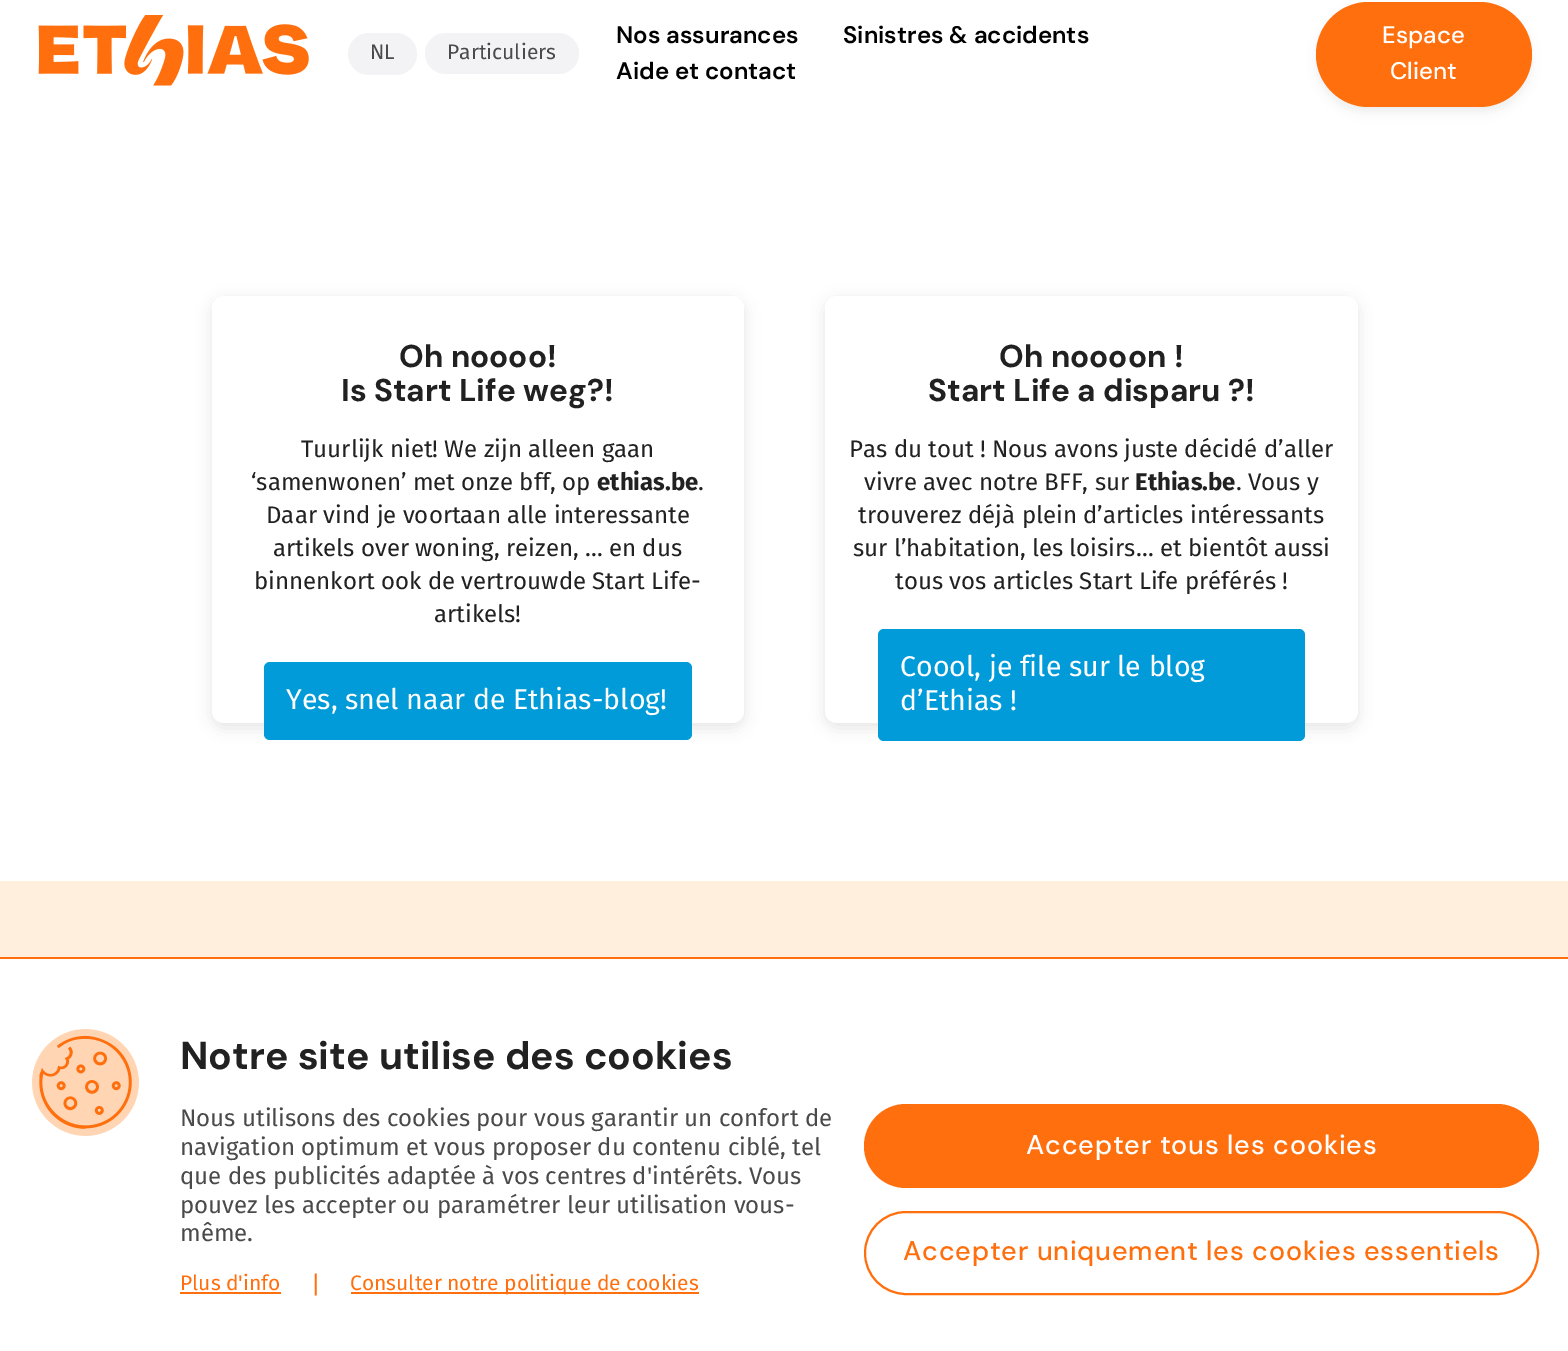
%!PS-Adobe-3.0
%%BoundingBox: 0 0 1568 1351
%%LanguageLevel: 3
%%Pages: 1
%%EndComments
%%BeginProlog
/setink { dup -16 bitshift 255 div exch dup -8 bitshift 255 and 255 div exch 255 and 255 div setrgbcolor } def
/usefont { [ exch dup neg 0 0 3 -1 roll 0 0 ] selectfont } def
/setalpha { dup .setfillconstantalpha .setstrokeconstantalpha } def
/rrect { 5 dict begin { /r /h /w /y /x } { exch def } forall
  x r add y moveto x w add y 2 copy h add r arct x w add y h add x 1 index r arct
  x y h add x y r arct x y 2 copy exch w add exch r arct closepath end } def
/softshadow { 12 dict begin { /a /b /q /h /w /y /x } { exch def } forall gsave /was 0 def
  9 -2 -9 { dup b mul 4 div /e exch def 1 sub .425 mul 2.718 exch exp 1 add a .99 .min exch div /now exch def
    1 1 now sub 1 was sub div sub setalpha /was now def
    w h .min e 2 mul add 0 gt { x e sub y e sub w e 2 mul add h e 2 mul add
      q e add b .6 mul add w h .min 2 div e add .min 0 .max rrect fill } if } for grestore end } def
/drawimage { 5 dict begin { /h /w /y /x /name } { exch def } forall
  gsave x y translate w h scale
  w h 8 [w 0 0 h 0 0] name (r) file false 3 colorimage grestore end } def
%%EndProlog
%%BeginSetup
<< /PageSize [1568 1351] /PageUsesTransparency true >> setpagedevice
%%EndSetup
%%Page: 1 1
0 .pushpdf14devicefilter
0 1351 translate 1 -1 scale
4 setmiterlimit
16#FFFFFF setink
0 0 1568 1351 rectfill
(img1.raw) 38 15 271 71 drawimage
16#F3F2F5 setink
348 33 69 42 21 rrect fill
/FiraSans-Regular 21 usefont
16#4A4A4A setink
370 59 moveto (NL) show
16#F3F2F5 setink
425 33 154 41 20.5 rrect fill
16#4A4A4A setink
447 59 moveto (Particuliers) show
/DMSans-SemiBold 24 usefont
16#000000 setink
[
    [(Nos assurances) 616 43]
    [(Sinistres & accidents) 843 43]
    [(Aide et contact) 616 79]
] { aload pop moveto show } forall
16#141414 setink
1319 11 210 99 49.5 6 0.1 softshadow
16#FF6F0D setink
1316 2 216 105 52.5 rrect fill
/DMSans-Medium 24 usefont
16#FFFFFF setink
1382 43 moveto (Espace) show
1390 79 moveto (Client) show
16#000000 setink
212 300 532 428 12 7.5 0.1 softshadow
16#FFFFFF setink
212 296 532 427 12 rrect fill
/DMSans-Bold 31.5 usefont
16#212121 setink
399 367 moveto (Oh noooo!) show
341 401 moveto (Is Start Life weg?!) show
/FiraSans-Regular 24 usefont
301 457 moveto (Tuurlijk niet! We zijn alleen gaan) show
251 490 moveto (‘samenwonen’ met onze bff, op) show
/FiraSans-Bold 24 usefont
597 490 moveto (ethias.be) show
/FiraSans-Regular 24 usefont
[
    [(.) 698 490]
    [(Daar vind je voortaan alle interessante) 266 523]
    [(artikels over woning, reizen, … en dus) 273 556]
    [(binnenkort ook de vertrouwde Start Life-) 254 589]
    [(artikels!) 434 622]
] { aload pop moveto show } forall
16#009BD8 setink
264 662 428 78 6 rrect fill
/FiraSans-Regular 28.5 usefont
16#FFFFFF setink
286 709 moveto (Yes, snel naar de Ethias-blog!) show
16#000000 setink
825 300 533 428 12 7.5 0.1 softshadow
16#FFFFFF setink
825 296 533 427 12 rrect fill
/DMSans-Bold 31.5 usefont
16#212121 setink
999 367 moveto (Oh noooon !) show
928 401 moveto (Start Life a disparu ?!) show
/FiraSans-Regular 24 usefont
849 457 moveto (Pas du tout ! Nous avons juste décidé d’aller) show
864 490 moveto (vivre avec notre BFF, sur) show
/FiraSans-Bold 24 usefont
1135 490 moveto (Ethias.be) show
/FiraSans-Regular 24 usefont
[
    [(. Vous y) 1236 490]
    [(trouverez déjà plein d’articles intéressants) 858 523]
    [(sur l’habitation, les loisirs… et bientôt aussi) 853 556]
    [(tous vos articles Start Life préférés !) 895 589]
] { aload pop moveto show } forall
16#009BD8 setink
878 629 427 112 6 rrect fill
/FiraSans-Regular 28.5 usefont
16#FFFFFF setink
900 676 moveto (Coool, je file sur le blog) show
900 710 moveto (d’Ethias !) show
16#FFEFDC setink
0 881 1568 76 rectfill
16#FF6F0D setink
0 957 1568 2 rectfill
(img2.raw) 32 1029 107 107 drawimage
/DMSans-Bold 39 usefont
16#212121 setink
180 1069 moveto (Notre site utilise des cookies) show
/FiraSans-Regular 24 usefont
16#4A4A4A setink
[
    [(Nous utilisons des cookies pour vous garantir un confort de) 180 1126]
    [(navigation optimum et vous proposer du contenu ciblé, tel) 180 1155]
    [(que des publicités adaptée à vos centres d'intérêts. Vous) 180 1184]
    [(pouvez les accepter ou paramétrer leur utilisation vous-) 180 1213]
    [(même.) 180 1241]
] { aload pop moveto show } forall
16#FF6F0D setink
864 1104 675 84 42 rrect fill
/DMSans-Medium 27 usefont
16#FFFFFF setink
1026 1154 moveto 0.8 0 (Accepter tous les cookies) ashow
16#FF6F0D setink
2 setlinewidth
865 1212 673 82 41 rrect stroke
903 1260 moveto 0.8 0 (Accepter uniquement les cookies essentiels) ashow
/FiraSans-Regular 21 usefont
180 1290 moveto (Plus d'info) show
180 1292 101 2 rectfill
/FiraSans-Regular 24 usefont
311 1293 moveto (|) show
351 1292 348 2 rectfill
/FiraSans-Regular 21 usefont
350 1290 moveto (Consulter notre politique de cookies) show
.poppdf14devicefilter showpage
%%EOF
